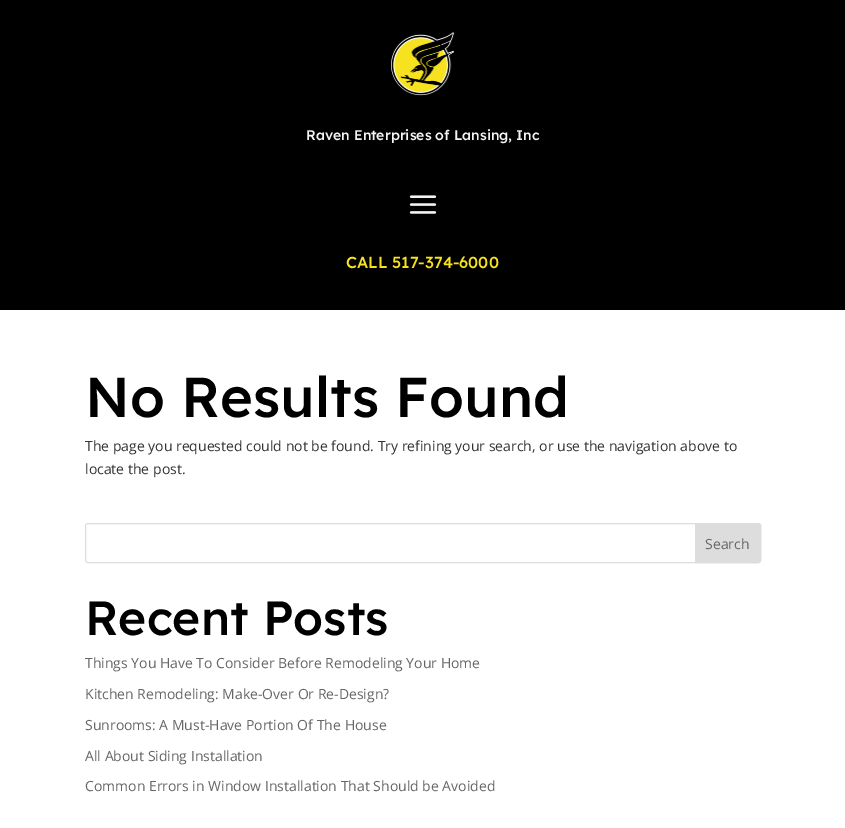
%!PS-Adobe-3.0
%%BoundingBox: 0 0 845 828
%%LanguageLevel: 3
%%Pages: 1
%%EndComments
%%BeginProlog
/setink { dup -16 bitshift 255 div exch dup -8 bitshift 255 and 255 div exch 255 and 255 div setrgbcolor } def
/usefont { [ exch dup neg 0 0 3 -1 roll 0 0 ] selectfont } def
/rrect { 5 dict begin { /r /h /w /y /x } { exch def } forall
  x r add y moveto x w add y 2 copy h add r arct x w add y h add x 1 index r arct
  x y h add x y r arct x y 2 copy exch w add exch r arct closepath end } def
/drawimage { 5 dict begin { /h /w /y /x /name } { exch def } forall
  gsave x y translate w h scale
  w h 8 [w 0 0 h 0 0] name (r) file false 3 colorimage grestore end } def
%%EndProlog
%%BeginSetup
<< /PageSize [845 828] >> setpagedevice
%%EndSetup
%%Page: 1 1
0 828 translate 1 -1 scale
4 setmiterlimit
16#FFFFFF setink
0 0 845 828 rectfill
16#000000 setink
0 0 845 310 rectfill
(img1.raw) 391 32 64 64 drawimage
/Lexend-Medium 14 usefont
16#F4F4F4 setink
306 140 moveto (Raven Enterprises of Lansing, Inc) show
(img2.raw) 409 195 28 19 drawimage
/Lexend-Medium 16 usefont
16#F6E21F setink
346 268 moveto (CALL 517-374-6000) show
/Lexend-Medium 56 usefont
16#000000 setink
85 417 moveto (No Results Found) show
/OpenSans-Regular 14 usefont
16#333333 setink
85 451 moveto (The page you requested could not be found. Try refining your search, or use the navigation above to) show
85 474 moveto (locate the post.) show
16#DDDDDD setink
85.5 523.5 675 39 2.5 rrect stroke
695.5 523.5 moveto 758 523.5 lineto 759.5 523.5 760.5 524.5 760.5 526 curveto 760.5 560 lineto 760.5 561.5 759.5 562.5 758 562.5 curveto 695.5 562.5 lineto closepath gsave fill grestore
stroke
16#666666 setink
705 549 moveto (Search) show
/Lexend-Medium 48 usefont
16#000000 setink
85 635 moveto (Recent Posts) show
/OpenSans-Regular 14 usefont
16#666666 setink
[
    [(Things You Have To Consider Before Remodeling Your Home) 85 668]
    [(Kitchen Remodeling: Make-Over Or Re-Design?) 85 699]
    [(Sunrooms: A Must-Have Portion Of The House) 85 730]
    [(All About Siding Installation) 85 761]
    [(Common Errors in Window Installation That Should be Avoided) 85 791]
] { aload pop moveto show } forall
showpage
%%EOF
